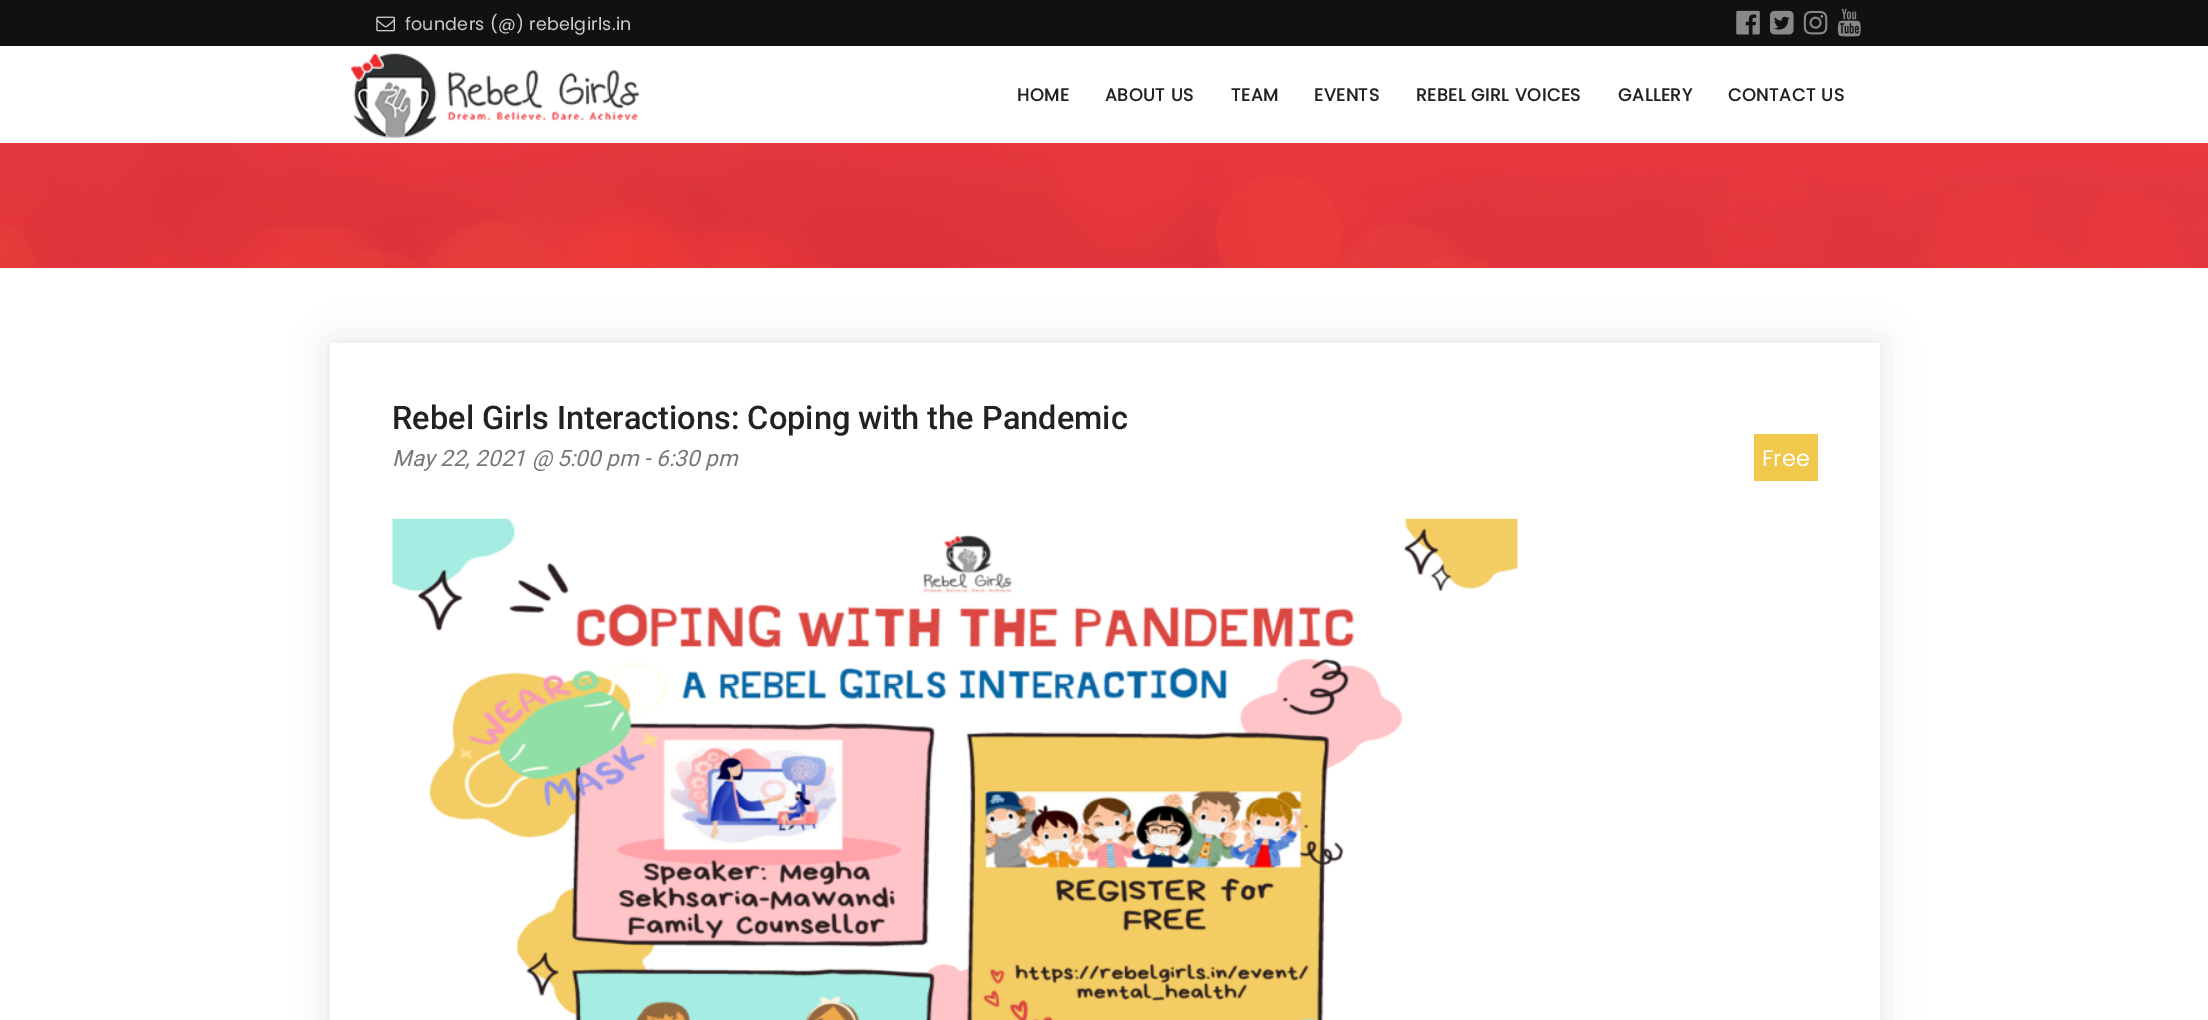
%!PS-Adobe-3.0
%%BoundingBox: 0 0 2208 1020
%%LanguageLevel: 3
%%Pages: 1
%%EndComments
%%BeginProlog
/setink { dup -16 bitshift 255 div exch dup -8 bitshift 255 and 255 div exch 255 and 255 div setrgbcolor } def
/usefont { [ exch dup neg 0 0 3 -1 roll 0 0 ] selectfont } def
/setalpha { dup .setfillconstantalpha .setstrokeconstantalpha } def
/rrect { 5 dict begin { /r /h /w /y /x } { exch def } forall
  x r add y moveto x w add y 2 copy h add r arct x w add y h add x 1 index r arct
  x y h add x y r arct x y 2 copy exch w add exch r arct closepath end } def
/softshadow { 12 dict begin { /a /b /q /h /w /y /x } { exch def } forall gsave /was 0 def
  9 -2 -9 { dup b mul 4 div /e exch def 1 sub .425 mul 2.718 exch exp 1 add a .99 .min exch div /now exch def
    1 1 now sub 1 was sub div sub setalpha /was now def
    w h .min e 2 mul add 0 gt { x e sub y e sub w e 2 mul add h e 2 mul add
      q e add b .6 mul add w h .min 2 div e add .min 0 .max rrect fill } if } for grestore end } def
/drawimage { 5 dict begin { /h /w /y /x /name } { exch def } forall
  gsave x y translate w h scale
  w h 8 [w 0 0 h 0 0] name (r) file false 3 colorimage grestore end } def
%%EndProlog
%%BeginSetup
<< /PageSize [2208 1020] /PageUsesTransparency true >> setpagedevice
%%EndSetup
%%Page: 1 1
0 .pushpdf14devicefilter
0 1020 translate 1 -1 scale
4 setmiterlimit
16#FFFFFF setink
0 0 2208 1020 rectfill
16#111111 setink
0 0 2208 46 rectfill
(img1.raw) 376 16 19 16 drawimage
/Poppins-Regular 17.5 usefont
16#CCCCCC setink
405 30 moveto 0.25 0 (founders \(@\) rebelgirls.in) ashow
(img2.raw) 1736 10 24 25 drawimage
(img3.raw) 1770 10 24 25 drawimage
(img4.raw) 1803 10 25 25 drawimage
(img5.raw) 1837 8 24 29 drawimage
(img6.raw) 351 53 288 85 drawimage
/Poppins-Bold 17.5 usefont
16#222222 setink
1017 101 moveto 0.6 0 (HOME) ashow
1105 101 moveto 0.6 0 (ABOUT US) ashow
1231 101 moveto 0.6 0 (TEAM) ashow
1314 101 moveto 0.6 0 (EVENTS) ashow
1416 101 moveto 0.6 0 (REBEL GIRL VOICES) ashow
1618 101 moveto 0.6 0 (GALLERY) ashow
1728 101 moveto 0.6 0 (CONTACT US) ashow
16#E43839 setink
0 267 2208 1 rectfill
(img7.raw) 0 143 2208 125 drawimage
gsave
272 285 moveto 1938 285 lineto 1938 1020 lineto 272 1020 lineto closepath 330 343 moveto 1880 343 lineto 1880 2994 lineto 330 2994 lineto closepath eoclip newpath
16#000000 setink
330 343 1550 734 0 19 0.1 softshadow
grestore
/Roboto-Medium 32.5 usefont
16#222222 setink
392 429 moveto (Rebel Girls Interactions: Coping with the Pandemic) show
/Roboto-Italic 22.5 usefont
16#777777 setink
392 466 moveto (May 22, 2021 @ 5:00 pm - 6:30 pm) show
16#F0C84C setink
1754 434 64 47 rectfill
/Poppins-Regular 22.5 usefont
16#FFFFFF setink
1762 466 moveto (Free) show
(img8.raw) 392 518 1126 502 drawimage
.poppdf14devicefilter showpage
%%EOF
